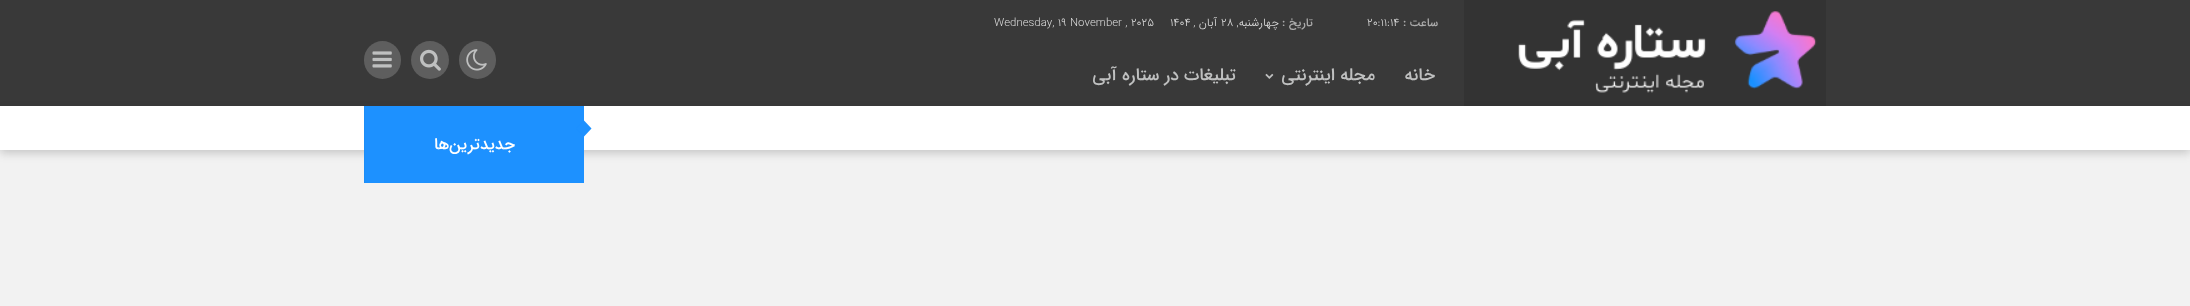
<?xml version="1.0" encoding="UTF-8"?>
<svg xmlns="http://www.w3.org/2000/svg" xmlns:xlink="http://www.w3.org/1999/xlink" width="2190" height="306">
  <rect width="100%" height="100%" fill="#f2f2f2" />
  <rect y="1" width="2190" height="150" fill="#000000" fill-opacity="0.1" filter="blur(5px)" />
  <rect width="2190" height="106" fill="#393939" />
  <rect x="1464" width="362" height="106" fill="#333333" />
  <image x="1518" y="11" width="299" height="82" xlink:href="image1.png" />
  <image x="1265" y="73" width="9" height="6" xlink:href="image2.png" />
  <rect x="459" y="41" width="37" height="38" rx="18.5" fill="#5e5e5e" />
  <image x="466" y="49" width="21" height="22" xlink:href="image3.png" />
  <circle cx="430" cy="60" r="19" fill="#5e5e5e" />
  <image x="420" y="49" width="21" height="22" xlink:href="image4.png" />
  <rect x="364" y="41" width="37" height="38" rx="18.5" fill="#5e5e5e" />
  <image x="372" y="51" width="20" height="17" xlink:href="image5.png" />
  <rect y="110" width="2190" height="44" fill="#000000" fill-opacity="0.1" filter="blur(5px)" />
  <rect y="106" width="2190" height="44" fill="#ffffff" />
  <rect x="365" y="106" width="219" height="77" fill="#1d91ff" />
  <rect x="364" y="106" width="1" height="77" fill="#1c8df7" />
  <path d="M 584 120.5 l 7.5 8 l -7.5 8 l -8 -8 z" fill="#1d91ff" />
  <text x="1438" y="26" style="font-family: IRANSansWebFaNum; font-size: 11.4px; font-weight: 500; direction: rtl; fill: #ababab">ساعت :</text>
  <text x="1367" y="26" style="font-family: IRANSansWebFaNum; font-size: 11.4px; font-weight: 300; fill: #dddddd">20:11:14</text>
  <text x="1313" y="26" style="font-family: IRANSansWebFaNum; font-size: 11.4px; font-weight: 500; direction: rtl; fill: #ababab">تاریخ :</text>
  <text x="1279" y="26" style="font-family: IRANSansWebFaNum; font-size: 11.4px; font-weight: 300; direction: rtl; fill: #dddddd">چهارشنبه,</text>
  <text x="1221" y="26" style="font-family: IRANSansWebFaNum; font-size: 11.4px; font-weight: 300; fill: #dddddd">۲۸</text>
  <text x="1217" y="26" style="font-family: IRANSansWebFaNum; font-size: 11.4px; font-weight: 300; direction: rtl; fill: #dddddd">آبان ,</text>
  <text x="1170" y="26" style="font-family: IRANSansWebFaNum; font-size: 11.4px; font-weight: 300; fill: #dddddd">۱۴۰۴</text>
  <text x="994" y="26" style="font-family: IRANSansWebFaNum; font-size: 11.4px; font-weight: 300; fill: #dddddd">Wednesday, 19 November , 2025</text>
  <text x="1435" y="80" style="font-family: IRANSansWebFaNum; font-size: 17.5px; font-weight: 500; direction: rtl; fill: #bfc0c0">خانه</text>
  <text x="1375" y="80" style="font-family: IRANSansWebFaNum; font-size: 17.5px; font-weight: 500; direction: rtl; fill: #bfc0c0">مجله اینترنتی</text>
  <text x="1236" y="80" style="font-family: IRANSansWebFaNum; font-size: 17.5px; font-weight: 500; direction: rtl; fill: #bfc0c0">تبلیغات در ستاره آبی</text>
  <text x="515" y="149" style="font-family: IRANSansWebFaNum; font-size: 16.25px; font-weight: 500; direction: rtl; fill: #ffffff">جدیدترین‌ها</text>
</svg>
